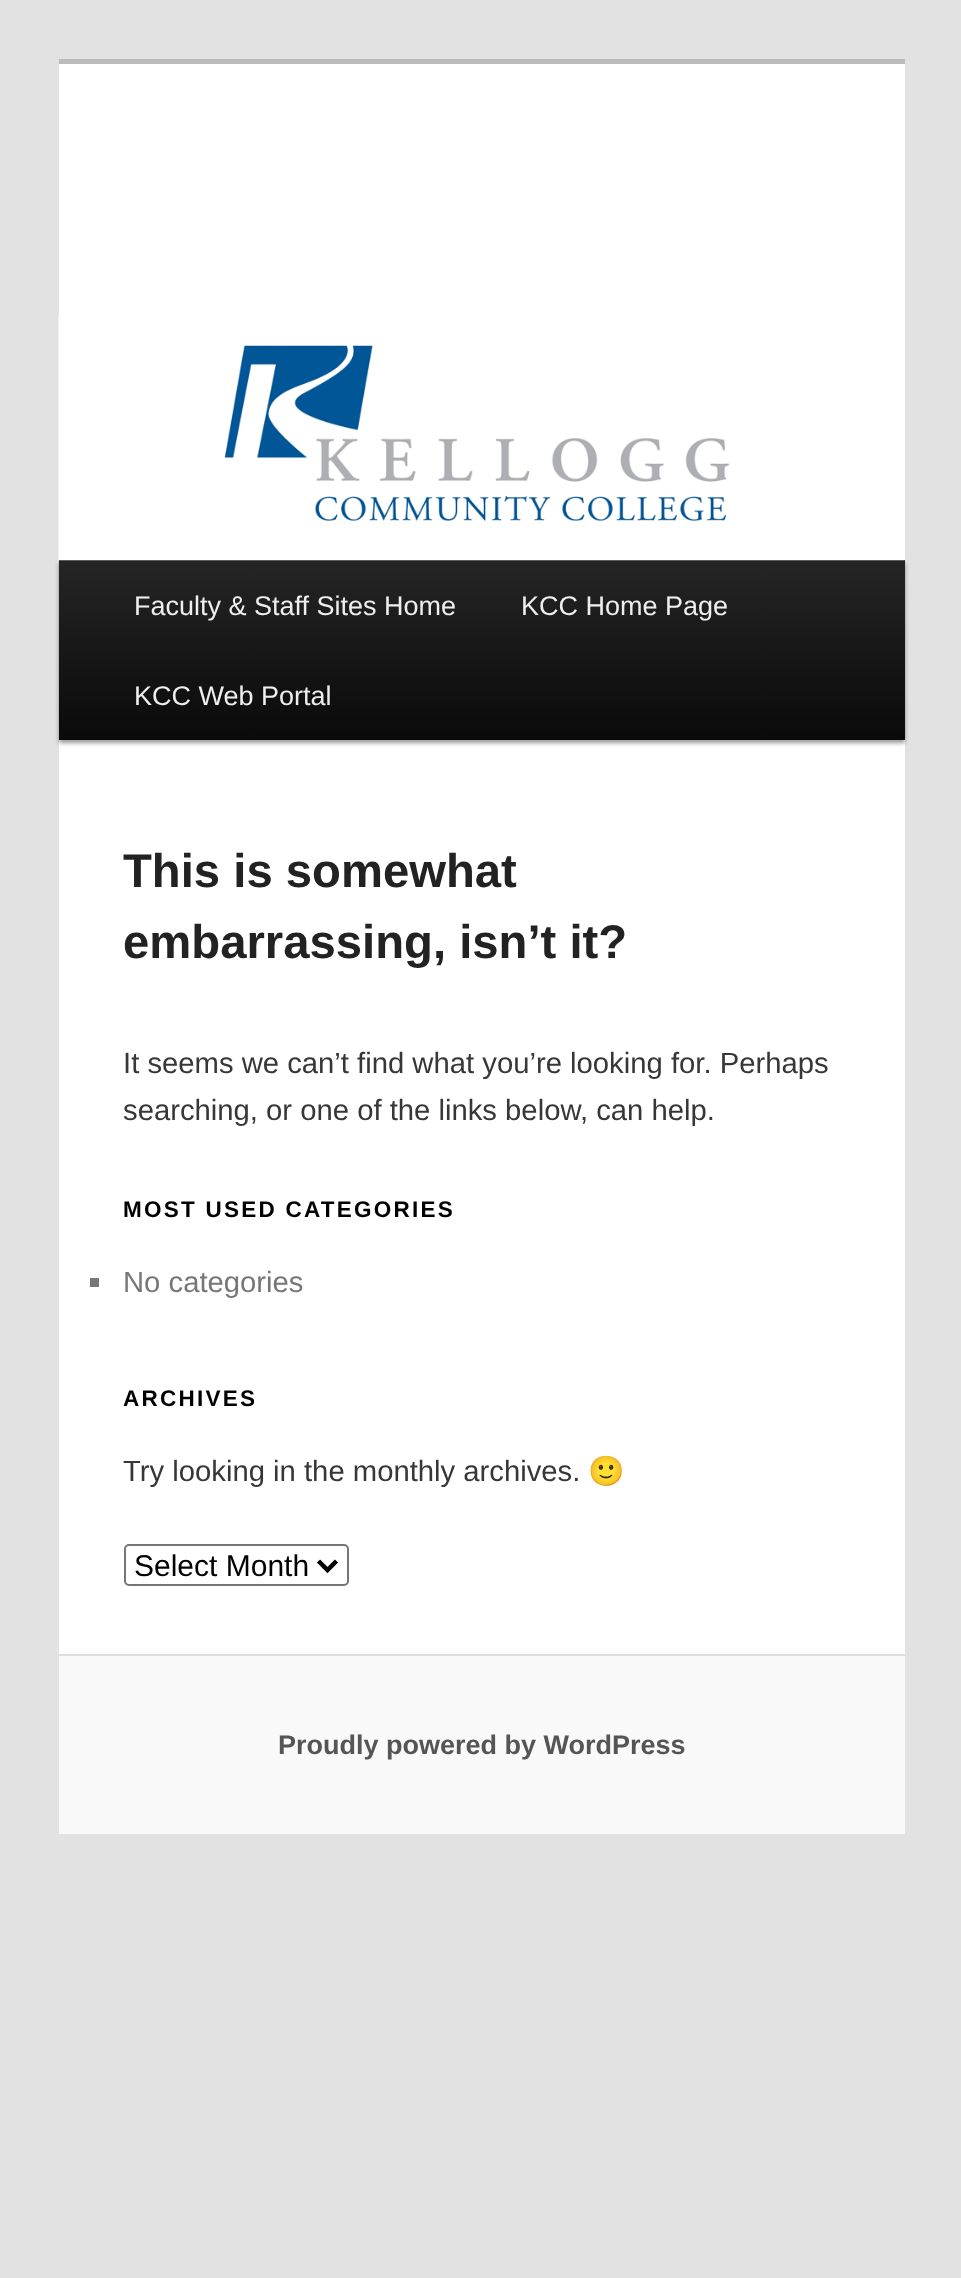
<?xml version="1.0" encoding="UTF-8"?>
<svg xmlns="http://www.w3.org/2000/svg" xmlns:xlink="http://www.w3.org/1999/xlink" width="961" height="2278">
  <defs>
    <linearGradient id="g1" gradientUnits="userSpaceOnUse" x1="482" y1="560" x2="482" y2="740"><stop offset="0" stop-color="#252525" /><stop offset="1" stop-color="#0a0a0a" /></linearGradient>
  </defs>
  <rect width="100%" height="100%" fill="#e2e2e2" />
  <rect x="59" y="64" width="846" height="1590" fill="#ffffff" />
  <rect x="59" y="59" width="846" height="5" fill="#bbbbbb" />
  <rect x="59" y="563" width="846" height="180" fill="#000000" fill-opacity="0.4" filter="blur(2px)" />
  <rect x="59" y="560" width="846" height="180" fill="url(#g1)" />
  <image x="58" y="317" width="847" height="244" xlink:href="image1.png" />
  <rect x="90" y="1278" width="9" height="9" fill="#777777" />
  <rect x="125" y="1545" width="223" height="40" rx="4" fill="none" stroke="#767676" stroke-width="2" />
  <path d="M 318.5 1561 l 9 9 l 9 -9" fill="none" stroke="#000000" stroke-width="4.5" />
  <rect x="59" y="1656" width="846" height="178" fill="#f9f9f9" />
  <rect x="59" y="1654" width="846" height="2" fill="#dddddd" />
  <text x="134" y="615" style="font-family: Liberation Sans; font-size: 27px; fill: #eeeeee">Faculty &amp; Staff Sites Home</text>
  <text x="521" y="615" style="font-family: Liberation Sans; font-size: 27px; fill: #eeeeee">KCC Home Page</text>
  <text x="134" y="705" style="font-family: Liberation Sans; font-size: 27px; fill: #eeeeee">KCC Web Portal</text>
  <text x="123" y="887" style="font-family: Liberation Sans; font-size: 47.25px; font-weight: bold; fill: #222222">This is somewhat</text>
  <text x="123" y="958" style="font-family: Liberation Sans; font-size: 47.25px; font-weight: bold; fill: #222222">embarrassing, isn’t it?</text>
  <text x="123" y="1073" style="font-family: Liberation Sans; font-size: 29.25px; fill: #373737">It seems we can’t find what you’re looking for. Perhaps</text>
  <text x="123" y="1120" style="font-family: Liberation Sans; font-size: 29.25px; fill: #373737">searching, or one of the links below, can help.</text>
  <text x="123" y="1217" style="font-family: Liberation Sans; font-size: 22.5px; font-weight: bold; letter-spacing: 2.25px; fill: #000000">MOST USED CATEGORIES</text>
  <text x="123" y="1292" style="font-family: Liberation Sans; font-size: 29.25px; fill: #777777">No categories</text>
  <text x="123" y="1406" style="font-family: Liberation Sans; font-size: 22.5px; font-weight: bold; letter-spacing: 2.25px; fill: #000000">ARCHIVES</text>
  <text x="123" y="1481" style="font-family: Liberation Sans; font-size: 29.25px; fill: #373737">Try looking in the monthly archives.</text>
  <text x="588" y="1481" style="font-family: Noto Color Emoji; font-size: 29.25px; fill: #373737">🙂</text>
  <text x="134" y="1576" style="font-family: Liberation Sans; font-size: 30px; fill: #000000">Select Month</text>
  <text x="278" y="1754" style="font-family: Liberation Sans; font-size: 27px; font-weight: bold; fill: #555555">Proudly powered by WordPress</text>
</svg>
